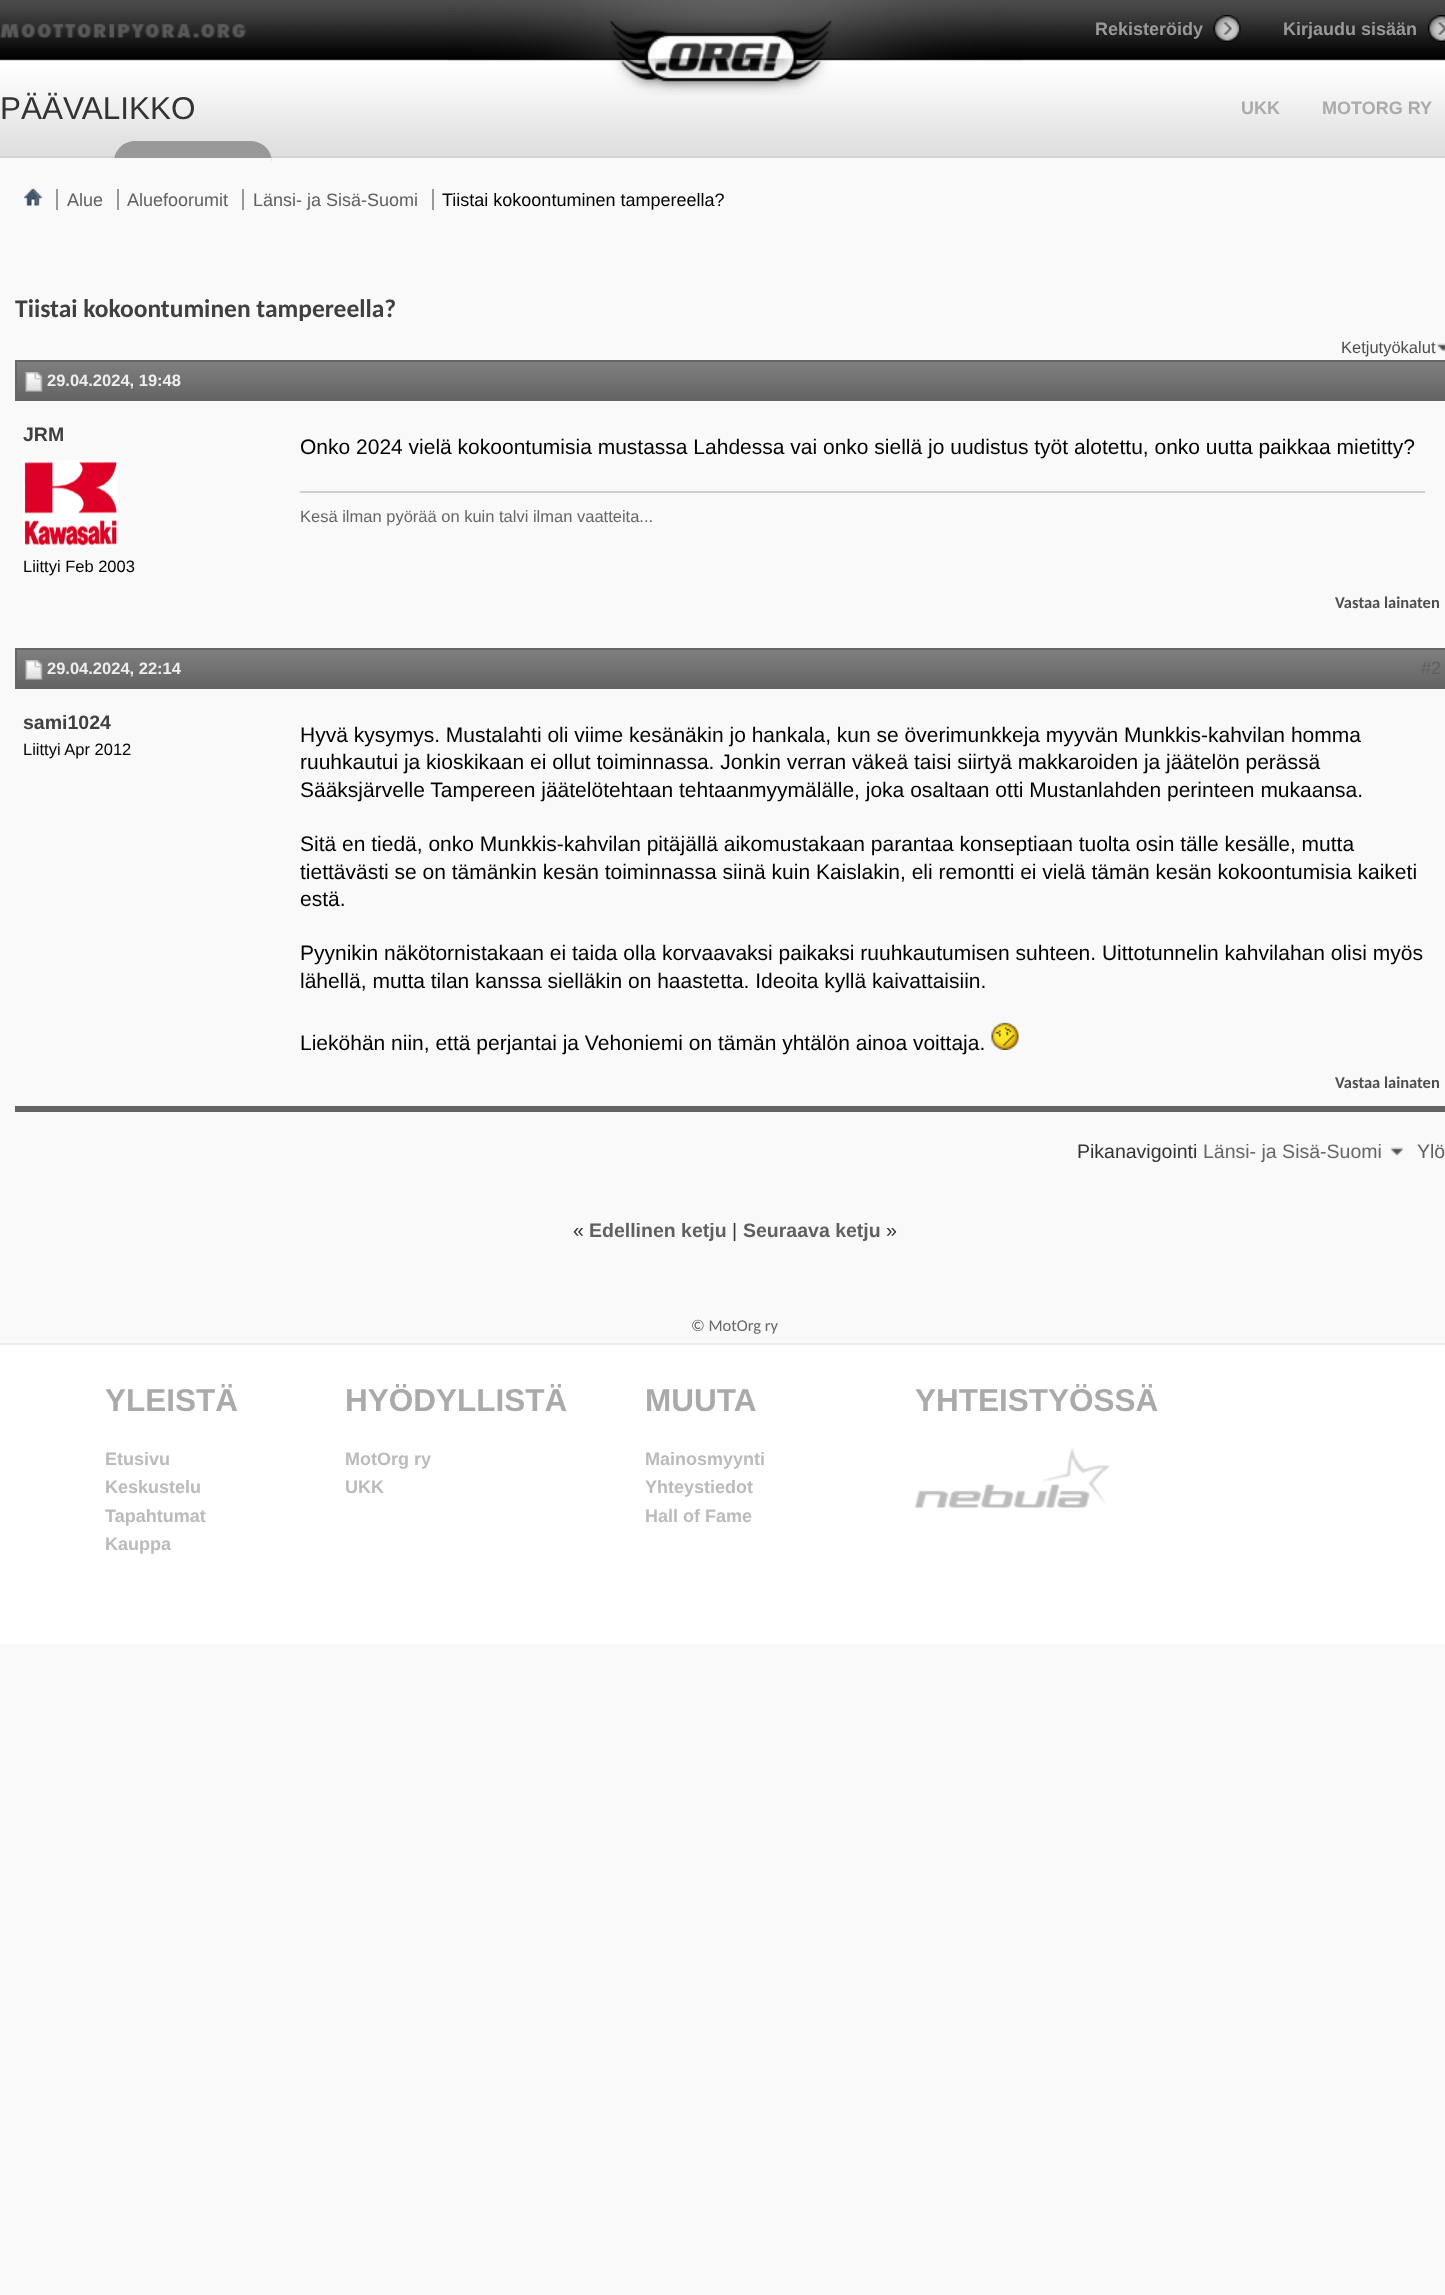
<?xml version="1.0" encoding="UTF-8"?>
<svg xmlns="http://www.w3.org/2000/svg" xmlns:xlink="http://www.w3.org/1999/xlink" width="1445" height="2295">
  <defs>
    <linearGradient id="g1" gradientUnits="userSpaceOnUse" x1="737" y1="361" x2="737" y2="399"><stop offset="0" stop-color="#808080" /><stop offset="1" stop-color="#646464" /></linearGradient>
    <linearGradient id="g2" gradientUnits="userSpaceOnUse" x1="737" y1="649" x2="737" y2="687"><stop offset="0" stop-color="#808080" /><stop offset="1" stop-color="#646464" /></linearGradient>
  </defs>
  <rect width="100%" height="100%" fill="#f9f9f9" />
  <rect y="156" width="1445" height="2" fill="#d4d4d4" />
  <image x="0" y="0" width="1445" height="156" xlink:href="image1.png" />
  <image x="448" y="0" width="575" height="61" xlink:href="image2.png" />
  <image x="0" y="23" width="247" height="15" xlink:href="image3.png" />
  <image x="610" y="20" width="222" height="75" xlink:href="image4.png" />
  <image x="1213" y="15" width="28" height="27" xlink:href="image5.png" />
  <image x="1428" y="15" width="17" height="27" xlink:href="image6.png" />
  <path d="M 135 141 h 116 c 11.5 0 21 9.5 21 21 v -4 h -158 v 4 c 0 -11.5 9.5 -21 21 -21 z" fill="#999999" />
  <rect x="114" y="158" width="158" height="1" fill="#f9f9f9" />
  <image x="24" y="188" width="18" height="18" xlink:href="image7.png" />
  <rect x="56" y="189" width="2" height="21" fill="#999999" />
  <rect x="117" y="189" width="2" height="21" fill="#999999" />
  <rect x="242" y="189" width="2" height="21" fill="#999999" />
  <rect x="432" y="189" width="2" height="21" fill="#999999" />
  <image x="1437" y="343" width="8" height="9" xlink:href="image8.png" />
  <rect x="15" y="1106" width="1430" height="6" fill="#646464" />
  <rect x="17" y="362" width="1428" height="37" fill="url(#g1)" />
  <rect x="16" y="361" width="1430" height="39" fill="none" stroke="#666666" stroke-width="2" />
  <image x="25" y="372" width="18" height="20" xlink:href="image9.png" />
  <image x="23" y="460" width="95" height="87" xlink:href="image10.png" />
  <rect x="300" y="491" width="1125" height="2" fill="#cfcfcf" />
  <rect x="17" y="650" width="1428" height="37" fill="url(#g2)" />
  <rect x="16" y="649" width="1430" height="39" fill="none" stroke="#666666" stroke-width="2" />
  <image x="25" y="660" width="18" height="20" xlink:href="image9.png" />
  <image x="991" y="1022" width="28" height="28" xlink:href="image11.png" />
  <image x="1390" y="1147" width="14" height="9" xlink:href="image12.png" />
  <rect y="1345" width="1445" height="299" fill="#ffffff" />
  <rect y="1343" width="1445" height="2" fill="#eeeeee" />
  <image x="915" y="1448" width="195" height="60" xlink:href="image13.png" />
  <text x="1095" y="35" style="font-family: Liberation Sans; font-size: 18px; font-weight: bold; fill: #999999">Rekisteröidy</text>
  <text x="1283" y="35" style="font-family: Liberation Sans; font-size: 18px; font-weight: bold; fill: #999999">Kirjaudu sisään</text>
  <text x="0" y="119" style="font-family: Liberation Sans; font-size: 31.5px; fill: #333333">PÄÄVALIKKO</text>
  <text x="1241" y="114" style="font-family: Liberation Sans; font-size: 18px; font-weight: bold; fill: #aaaaaa">UKK</text>
  <text x="1322" y="114" style="font-family: Liberation Sans; font-size: 18px; font-weight: bold; fill: #aaaaaa">MOTORG RY</text>
  <text x="67" y="206" style="font-family: Liberation Sans; font-size: 18px; fill: #606060">Alue</text>
  <text x="127" y="206" style="font-family: Liberation Sans; font-size: 18px; fill: #606060">Aluefoorumit</text>
  <text x="253" y="206" style="font-family: Liberation Sans; font-size: 18px; fill: #606060">Länsi- ja Sisä-Suomi</text>
  <text x="442" y="206" style="font-family: Liberation Sans; font-size: 18px; fill: #000000">Tiistai kokoontuminen tampereella?</text>
  <text x="15" y="317" style="font-family: Carlito; font-size: 25.5px; font-weight: bold; fill: #404040">Tiistai kokoontuminen tampereella?</text>
  <text x="1341" y="353" style="font-family: Liberation Sans; font-size: 16.5px; fill: #4e4e4e">Ketjutyökalut</text>
  <text x="47" y="386" style="font-family: Liberation Sans; font-size: 16.5px; font-weight: bold; fill: #eeeeee">29.04.2024, 19:48</text>
  <text x="23" y="441" style="font-family: Liberation Sans; font-size: 19.5px; font-weight: bold; fill: #404040">JRM</text>
  <text x="23" y="572" style="font-family: Liberation Sans; font-size: 16.5px; fill: #000000">Liittyi Feb 2003</text>
  <text x="300" y="454" style="font-family: Liberation Sans; font-size: 21px; fill: #000000">Onko 2024 vielä kokoontumisia mustassa Lahdessa vai onko siellä jo uudistus työt alotettu, onko uutta paikkaa mietitty?</text>
  <text x="300" y="522" style="font-family: Liberation Sans; font-size: 16.5px; fill: #666666">Kesä ilman pyörää on kuin talvi ilman vaatteita...</text>
  <text x="1335" y="608" style="font-family: Carlito; font-size: 16.5px; font-weight: bold; fill: #4e4e4e">Vastaa lainaten</text>
  <text x="47" y="674" style="font-family: Liberation Sans; font-size: 16.5px; font-weight: bold; fill: #eeeeee">29.04.2024, 22:14</text>
  <text x="1421" y="674" style="font-family: Liberation Sans; font-size: 18px; fill: #606060">#2</text>
  <text x="23" y="729" style="font-family: Liberation Sans; font-size: 19.5px; font-weight: bold; fill: #404040">sami1024</text>
  <text x="23" y="755" style="font-family: Liberation Sans; font-size: 16.5px; fill: #000000">Liittyi Apr 2012</text>
  <text x="300" y="742" style="font-family: Liberation Sans; font-size: 21px; fill: #000000">Hyvä kysymys. Mustalahti oli viime kesänäkin jo hankala, kun se överimunkkeja myyvän Munkkis-kahvilan homma</text>
  <text x="300" y="769" style="font-family: Liberation Sans; font-size: 21px; fill: #000000">ruuhkautui ja kioskikaan ei ollut toiminnassa. Jonkin verran väkeä taisi siirtyä makkaroiden ja jäätelön perässä</text>
  <text x="300" y="797" style="font-family: Liberation Sans; font-size: 21px; fill: #000000">Sääksjärvelle Tampereen jäätelötehtaan tehtaanmyymälälle, joka osaltaan otti Mustanlahden perinteen mukaansa.</text>
  <text x="300" y="851" style="font-family: Liberation Sans; font-size: 21px; fill: #000000">Sitä en tiedä, onko Munkkis-kahvilan pitäjällä aikomustakaan parantaa konseptiaan tuolta osin tälle kesälle, mutta</text>
  <text x="300" y="879" style="font-family: Liberation Sans; font-size: 21px; fill: #000000">tiettävästi se on tämänkin kesän toiminnassa siinä kuin Kaislakin, eli remontti ei vielä tämän kesän kokoontumisia kaiketi</text>
  <text x="300" y="906" style="font-family: Liberation Sans; font-size: 21px; fill: #000000">estä.</text>
  <text x="300" y="960" style="font-family: Liberation Sans; font-size: 21px; fill: #000000">Pyynikin näkötornistakaan ei taida olla korvaavaksi paikaksi ruuhkautumisen suhteen. Uittotunnelin kahvilahan olisi myös</text>
  <text x="300" y="988" style="font-family: Liberation Sans; font-size: 21px; fill: #000000">lähellä, mutta tilan kanssa sielläkin on haastetta. Ideoita kyllä kaivattaisiin.</text>
  <text x="300" y="1050" style="font-family: Liberation Sans; font-size: 21px; fill: #000000">Lieköhän niin, että perjantai ja Vehoniemi on tämän yhtälön ainoa voittaja.</text>
  <text x="1335" y="1088" style="font-family: Carlito; font-size: 16.5px; font-weight: bold; fill: #4e4e4e">Vastaa lainaten</text>
  <text x="1077" y="1158" style="font-family: Liberation Sans; font-size: 19.5px; fill: #333333">Pikanavigointi</text>
  <text x="1203" y="1158" style="font-family: Liberation Sans; font-size: 19.5px; fill: #666666">Länsi- ja Sisä-Suomi</text>
  <text x="1417" y="1158" style="font-family: Liberation Sans; font-size: 19.5px; fill: #606060">Ylö</text>
  <text x="573" y="1237" style="font-family: Liberation Sans; font-size: 19.5px; fill: #333333">«</text>
  <text x="589" y="1237" style="font-family: Liberation Sans; font-size: 19.5px; font-weight: bold; fill: #606060">Edellinen ketju</text>
  <text x="732" y="1237" style="font-family: Liberation Sans; font-size: 19.5px; fill: #333333">|</text>
  <text x="743" y="1237" style="font-family: Liberation Sans; font-size: 19.5px; font-weight: bold; fill: #606060">Seuraava ketju</text>
  <text x="886" y="1237" style="font-family: Liberation Sans; font-size: 19.5px; fill: #333333">»</text>
  <text x="691" y="1331" style="font-family: Carlito; font-size: 16.5px; fill: #666666">© MotOrg ry</text>
  <text x="105" y="1411" style="font-family: Liberation Sans; font-size: 31.5px; font-weight: bold; fill: #aaaaaa">YLEISTÄ</text>
  <text x="105" y="1465" style="font-family: Liberation Sans; font-size: 18px; font-weight: bold; fill: #bbbbbb">Etusivu</text>
  <text x="105" y="1493" style="font-family: Liberation Sans; font-size: 18px; font-weight: bold; fill: #bbbbbb">Keskustelu</text>
  <text x="105" y="1522" style="font-family: Liberation Sans; font-size: 18px; font-weight: bold; fill: #bbbbbb">Tapahtumat</text>
  <text x="105" y="1550" style="font-family: Liberation Sans; font-size: 18px; font-weight: bold; fill: #bbbbbb">Kauppa</text>
  <text x="345" y="1411" style="font-family: Liberation Sans; font-size: 31.5px; font-weight: bold; fill: #aaaaaa">HYÖDYLLISTÄ</text>
  <text x="345" y="1465" style="font-family: Liberation Sans; font-size: 18px; font-weight: bold; fill: #bbbbbb">MotOrg ry</text>
  <text x="345" y="1493" style="font-family: Liberation Sans; font-size: 18px; font-weight: bold; fill: #bbbbbb">UKK</text>
  <text x="645" y="1411" style="font-family: Liberation Sans; font-size: 31.5px; font-weight: bold; fill: #aaaaaa">MUUTA</text>
  <text x="645" y="1465" style="font-family: Liberation Sans; font-size: 18px; font-weight: bold; fill: #bbbbbb">Mainosmyynti</text>
  <text x="645" y="1493" style="font-family: Liberation Sans; font-size: 18px; font-weight: bold; fill: #bbbbbb">Yhteystiedot</text>
  <text x="645" y="1522" style="font-family: Liberation Sans; font-size: 18px; font-weight: bold; fill: #bbbbbb">Hall of Fame</text>
  <text x="915" y="1411" style="font-family: Liberation Sans; font-size: 31.5px; font-weight: bold; fill: #aaaaaa">YHTEISTYÖSSÄ</text>
</svg>
